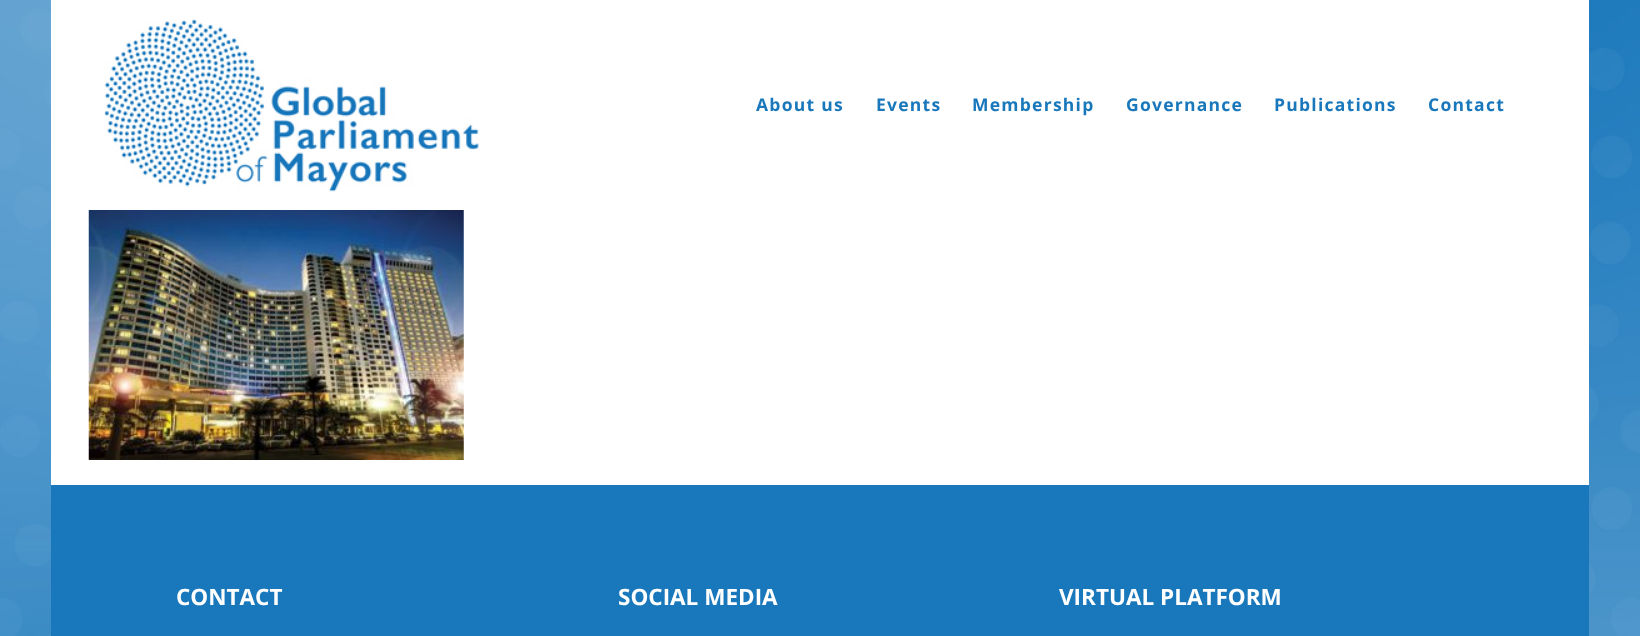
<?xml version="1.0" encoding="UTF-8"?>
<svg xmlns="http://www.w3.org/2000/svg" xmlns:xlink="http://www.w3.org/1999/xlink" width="1640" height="636">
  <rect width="100%" height="100%" fill="#ffffff" />
  <image x="0" y="0" width="1640" height="636" xlink:href="image1.png" />
  <rect x="51" width="1538" height="485" fill="#ffffff" />
  <image x="88" y="210" width="376" height="250" xlink:href="image2.png" />
  <image x="104" y="19" width="375" height="173" xlink:href="image3.png" />
  <rect x="51" y="485" width="1538" height="151" fill="#1977bb" />
  <text x="756" y="111" style="font-family: Open Sans; font-size: 17.5px; font-weight: bold; letter-spacing: 1.25px; fill: #1977bb">About us</text>
  <text x="876" y="111" style="font-family: Open Sans; font-size: 17.5px; font-weight: bold; letter-spacing: 1.25px; fill: #1977bb">Events</text>
  <text x="972" y="111" style="font-family: Open Sans; font-size: 17.5px; font-weight: bold; letter-spacing: 1.25px; fill: #1977bb">Membership</text>
  <text x="1126" y="111" style="font-family: Open Sans; font-size: 17.5px; font-weight: bold; letter-spacing: 1.25px; fill: #1977bb">Governance</text>
  <text x="1274" y="111" style="font-family: Open Sans; font-size: 17.5px; font-weight: bold; letter-spacing: 1.25px; fill: #1977bb">Publications</text>
  <text x="1428" y="111" style="font-family: Open Sans; font-size: 17.5px; font-weight: bold; letter-spacing: 1.25px; fill: #1977bb">Contact</text>
  <text x="176" y="605" style="font-family: Open Sans; font-size: 22.5px; font-weight: bold; fill: #ffffff">CONTACT</text>
  <text x="618" y="605" style="font-family: Open Sans; font-size: 22.5px; font-weight: bold; fill: #ffffff">SOCIAL MEDIA</text>
  <text x="1059" y="605" style="font-family: Open Sans; font-size: 22.5px; font-weight: bold; fill: #ffffff">VIRTUAL PLATFORM</text>
</svg>
